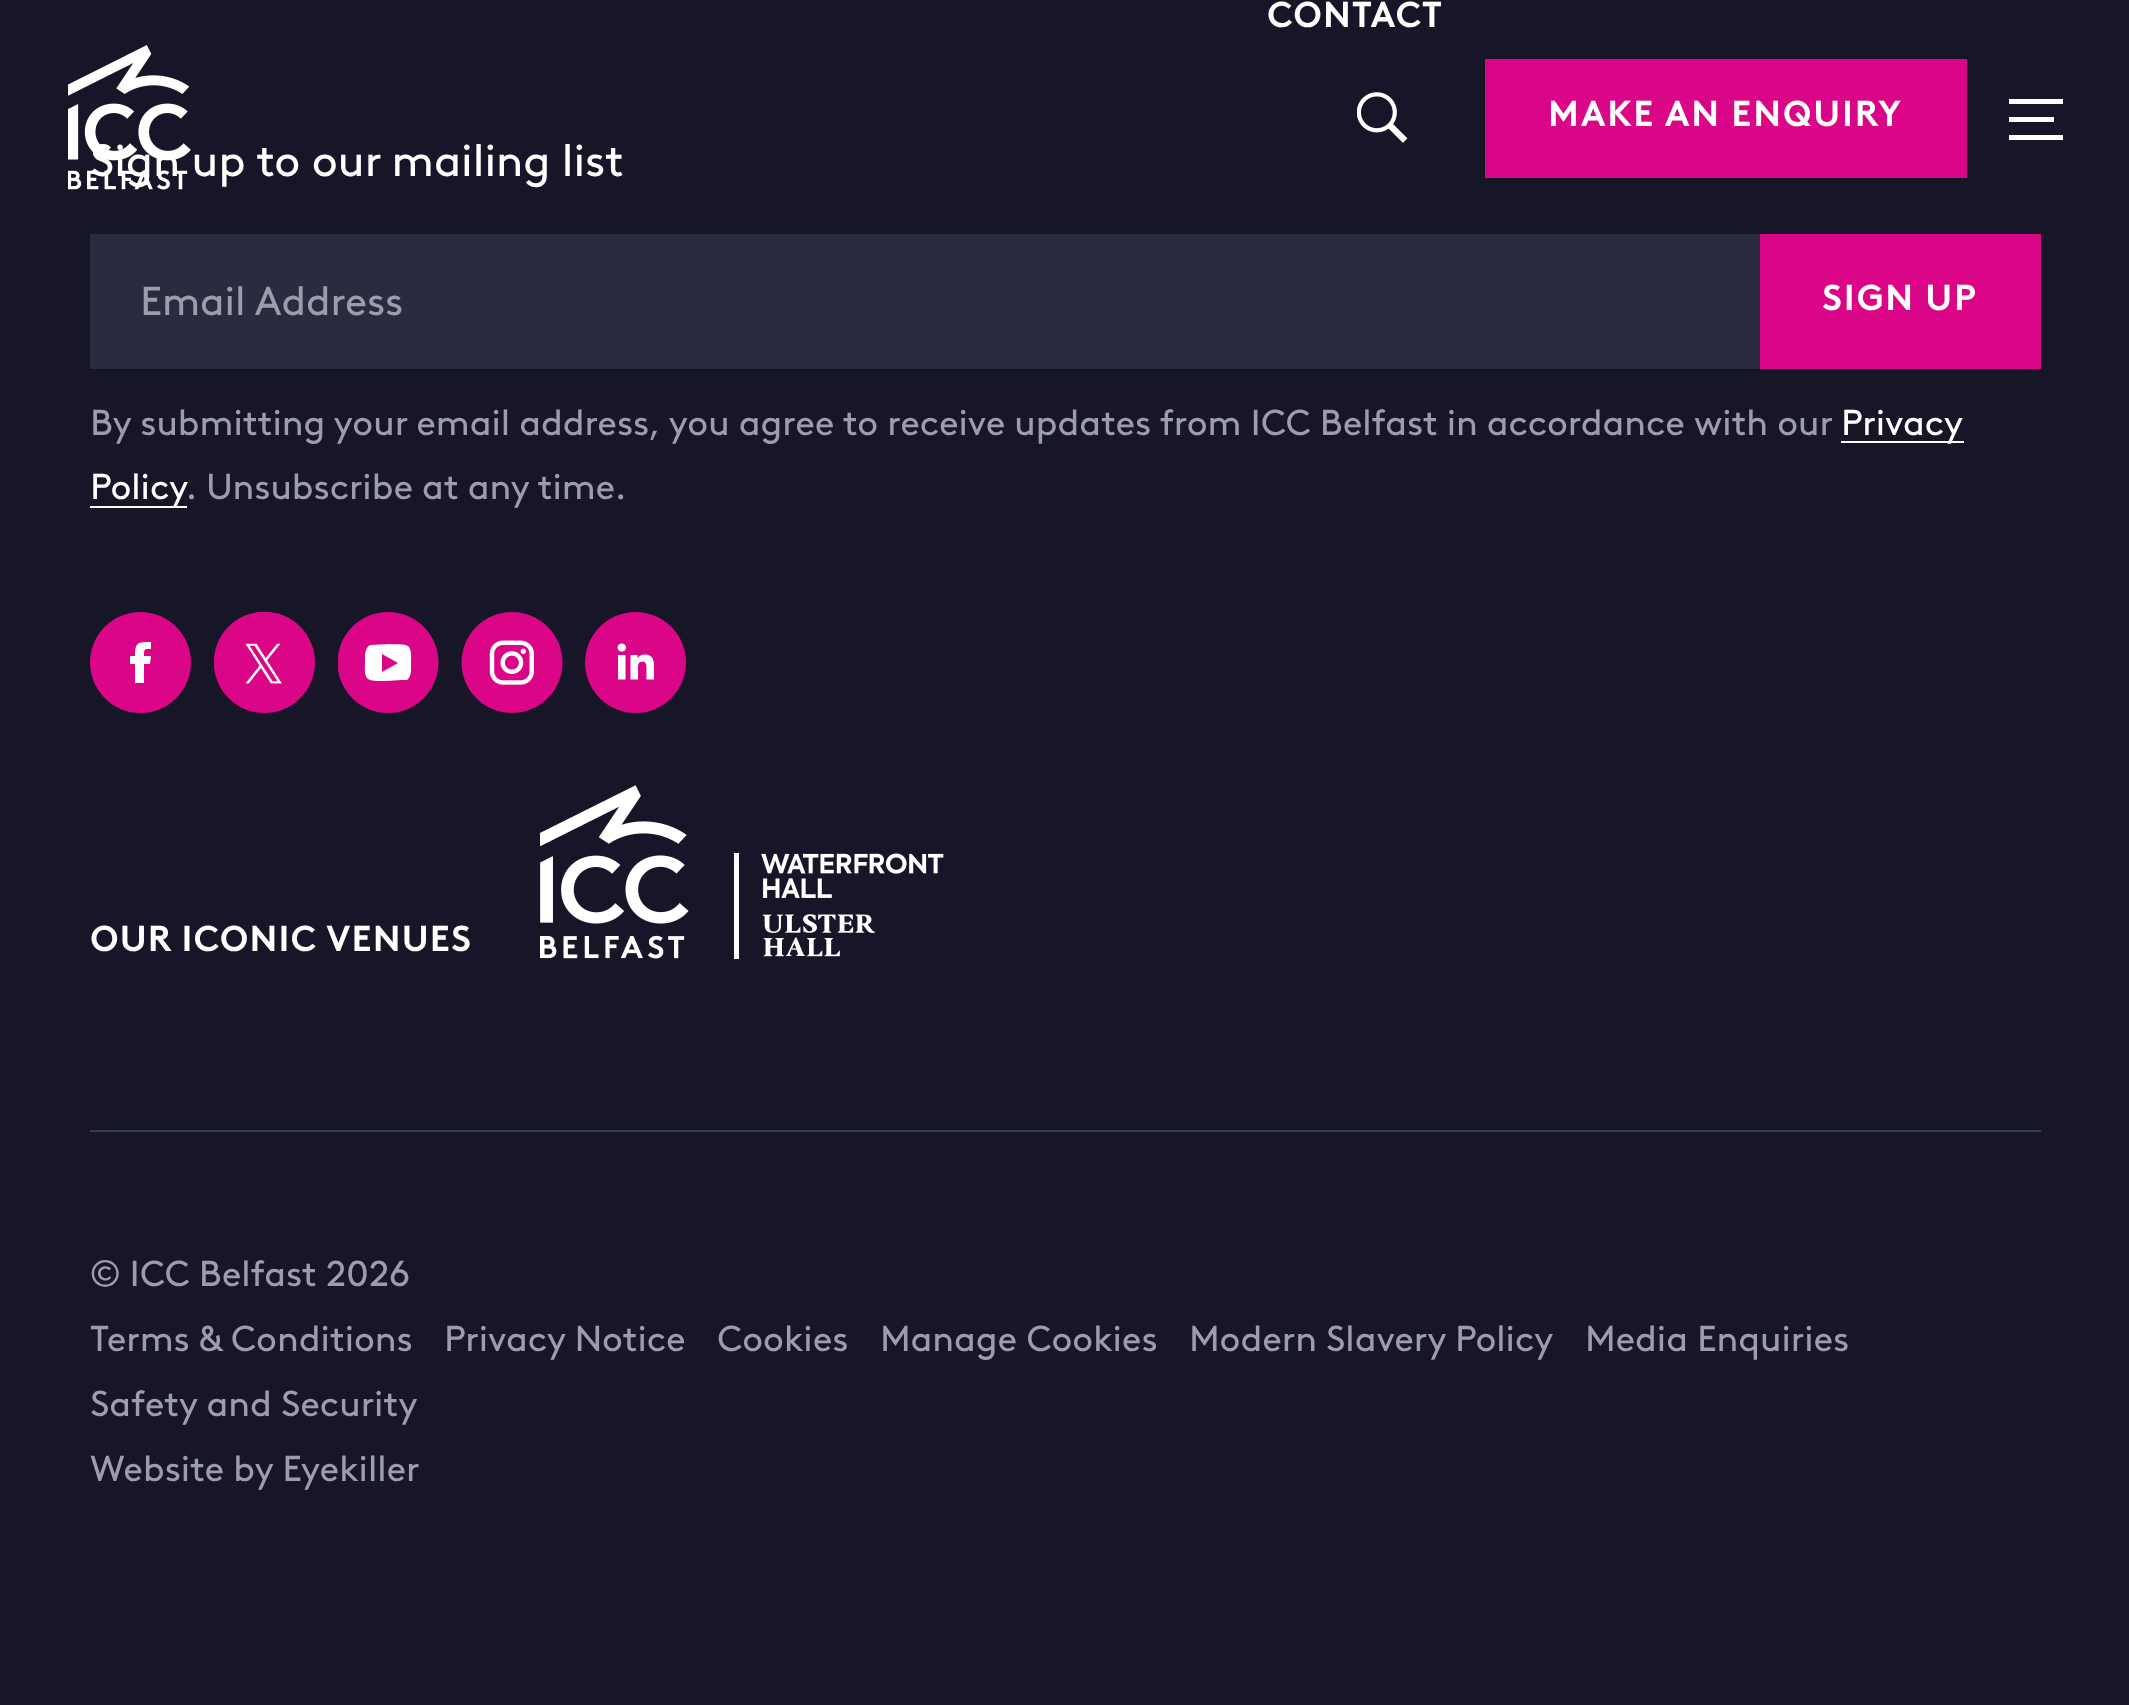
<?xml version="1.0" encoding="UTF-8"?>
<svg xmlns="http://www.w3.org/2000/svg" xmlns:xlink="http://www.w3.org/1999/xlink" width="2129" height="1705">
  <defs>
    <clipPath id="clip1"><rect x="338" y="612" width="101" height="101" /></clipPath>
  </defs>
  <rect width="100%" height="100%" fill="#161628" />
  <rect x="90" y="234" width="1670" height="135" fill="#2b2b3f" />
  <rect x="1760" y="234" width="281" height="135" fill="#da0587" />
  <rect x="1841" y="441" width="123" height="2" fill="#ffffff" />
  <rect x="90" y="506" width="97" height="2" fill="#ffffff" />
  <circle cx="140.5" cy="662.5" r="50.5" fill="#da0587" />
  <path d="M 144 683 h -9 v -19 h -5 v -8 h 5 c 0 -14 3 -14 16 -14 v 7 c -7 0 -7 0 -7 7 h 7 l -1 8 h -6 z" fill="#ffffff" fill-rule="evenodd" />
  <image x="214" y="612" width="101" height="101" xlink:href="image1.png" />
  <g clip-path="url(#clip1)">
    <circle cx="388" cy="662.5" r="50.5" fill="#da0587" />
  </g>
  <path d="M 409 647 c 3 4 2 12 2 16 c 0 4 1 14 -4 17 h -5 l -16 1 c -3 0 -16 1 -19 -3 c -3 -4 -2 -11 -2 -15 c 0 -5 -1 -15 5 -18 l 20 -1 c 3 1 16 -1 19 3 z m -27 25 v -18 l 16 9 z" fill="#ffffff" fill-rule="evenodd" />
  <image x="461" y="612" width="102" height="101" xlink:href="image2.png" />
  <circle cx="635.5" cy="662.5" r="50.5" fill="#da0587" />
  <path d="M 625.5 655 h -7.5 v 24.5 h 7.5 z m 0.5 -7.5 c 0 -5.5 -8.5 -5.5 -8.5 0 c 0 5.5 8.5 5.5 8.5 0 z m 11.5 7.5 h -7 v 24.5 h 7.5 v -12 c 0 -3 0.5 -6 4.5 -6 c 3.5 0 4 3.5 4 6 v 12 h 7.5 v -13.5 c 0 -6.5 -1.5 -11.5 -9 -11.5 c -4 0 -6.5 2 -7.5 4 z" fill="#ffffff" fill-rule="evenodd" />
  <image x="540" y="785" width="149" height="174" xlink:href="image3.png" />
  <rect x="734" y="853" width="5" height="106" fill="#ffffff" />
  <image x="761" y="853" width="183" height="45" xlink:href="image4.png" />
  <image x="762" y="914" width="113" height="43" xlink:href="image5.png" />
  <rect x="90" y="1130" width="1951" height="2" fill="#393952" />
  <image x="1357" y="92" width="51" height="51" xlink:href="image7.png" />
  <rect x="1485" y="59" width="482" height="119" fill="#da0587" />
  <rect x="2009" y="117" width="45" height="5" fill="#ffffff" />
  <rect x="2009" y="99" width="54" height="5" fill="#ffffff" />
  <rect x="2009" y="135" width="54" height="5" fill="#ffffff" />
  <text x="1267" y="27" style="font-family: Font; font-size: 36px; font-weight: bold; letter-spacing: 1.1px; fill: #ffffff">CONTACT</text>
  <text x="90" y="176" style="font-family: Font; font-size: 45px; fill: #ffffff">Sign up to our mailing list</text>
  <text x="140" y="315" style="font-family: Font; font-size: 40.5px; fill: #9c9cad">Email Address</text>
  <text x="1822" y="310" style="font-family: Font; font-size: 36px; font-weight: bold; letter-spacing: 1.75px; fill: #ffffff">SIGN UP</text>
  <text x="90" y="435" style="font-family: Font; font-size: 36px; fill: #9c9cad">By submitting your email address, you agree to receive updates from ICC Belfast in accordance with our</text>
  <text x="1841" y="435" style="font-family: Font; font-size: 36px; fill: #ffffff">Privacy</text>
  <text x="90" y="499" style="font-family: Font; font-size: 36px; fill: #ffffff">Policy</text>
  <text x="186" y="499" style="font-family: Font; font-size: 36px; fill: #9c9cad">. Unsubscribe at any time.</text>
  <text x="90" y="951" style="font-family: Font; font-size: 36px; font-weight: bold; letter-spacing: 1.1px; fill: #ffffff">OUR ICONIC VENUES</text>
  <text x="90" y="1286" style="font-family: Font; font-size: 36px; fill: #9c9cad">© ICC Belfast 2026</text>
  <text x="90" y="1351" style="font-family: Font; font-size: 36px; fill: #9c9cad">Terms &amp; Conditions</text>
  <text x="444" y="1351" style="font-family: Font; font-size: 36px; fill: #9c9cad">Privacy Notice</text>
  <text x="717" y="1351" style="font-family: Font; font-size: 36px; fill: #9c9cad">Cookies</text>
  <text x="880" y="1351" style="font-family: Font; font-size: 36px; fill: #9c9cad">Manage Cookies</text>
  <text x="1189" y="1351" style="font-family: Font; font-size: 36px; fill: #9c9cad">Modern Slavery Policy</text>
  <text x="1585" y="1351" style="font-family: Font; font-size: 36px; fill: #9c9cad">Media Enquiries</text>
  <text x="90" y="1416" style="font-family: Font; font-size: 36px; fill: #9c9cad">Safety and Security</text>
  <text x="90" y="1481" style="font-family: Font; font-size: 36px; fill: #9c9cad">Website by Eyekiller</text>
  <image x="68" y="45" width="123" height="145" xlink:href="image6.png" />
  <text x="1548" y="126" style="font-family: Font; font-size: 36px; font-weight: bold; letter-spacing: 1.75px; fill: #ffffff">MAKE AN ENQUIRY</text>
</svg>
